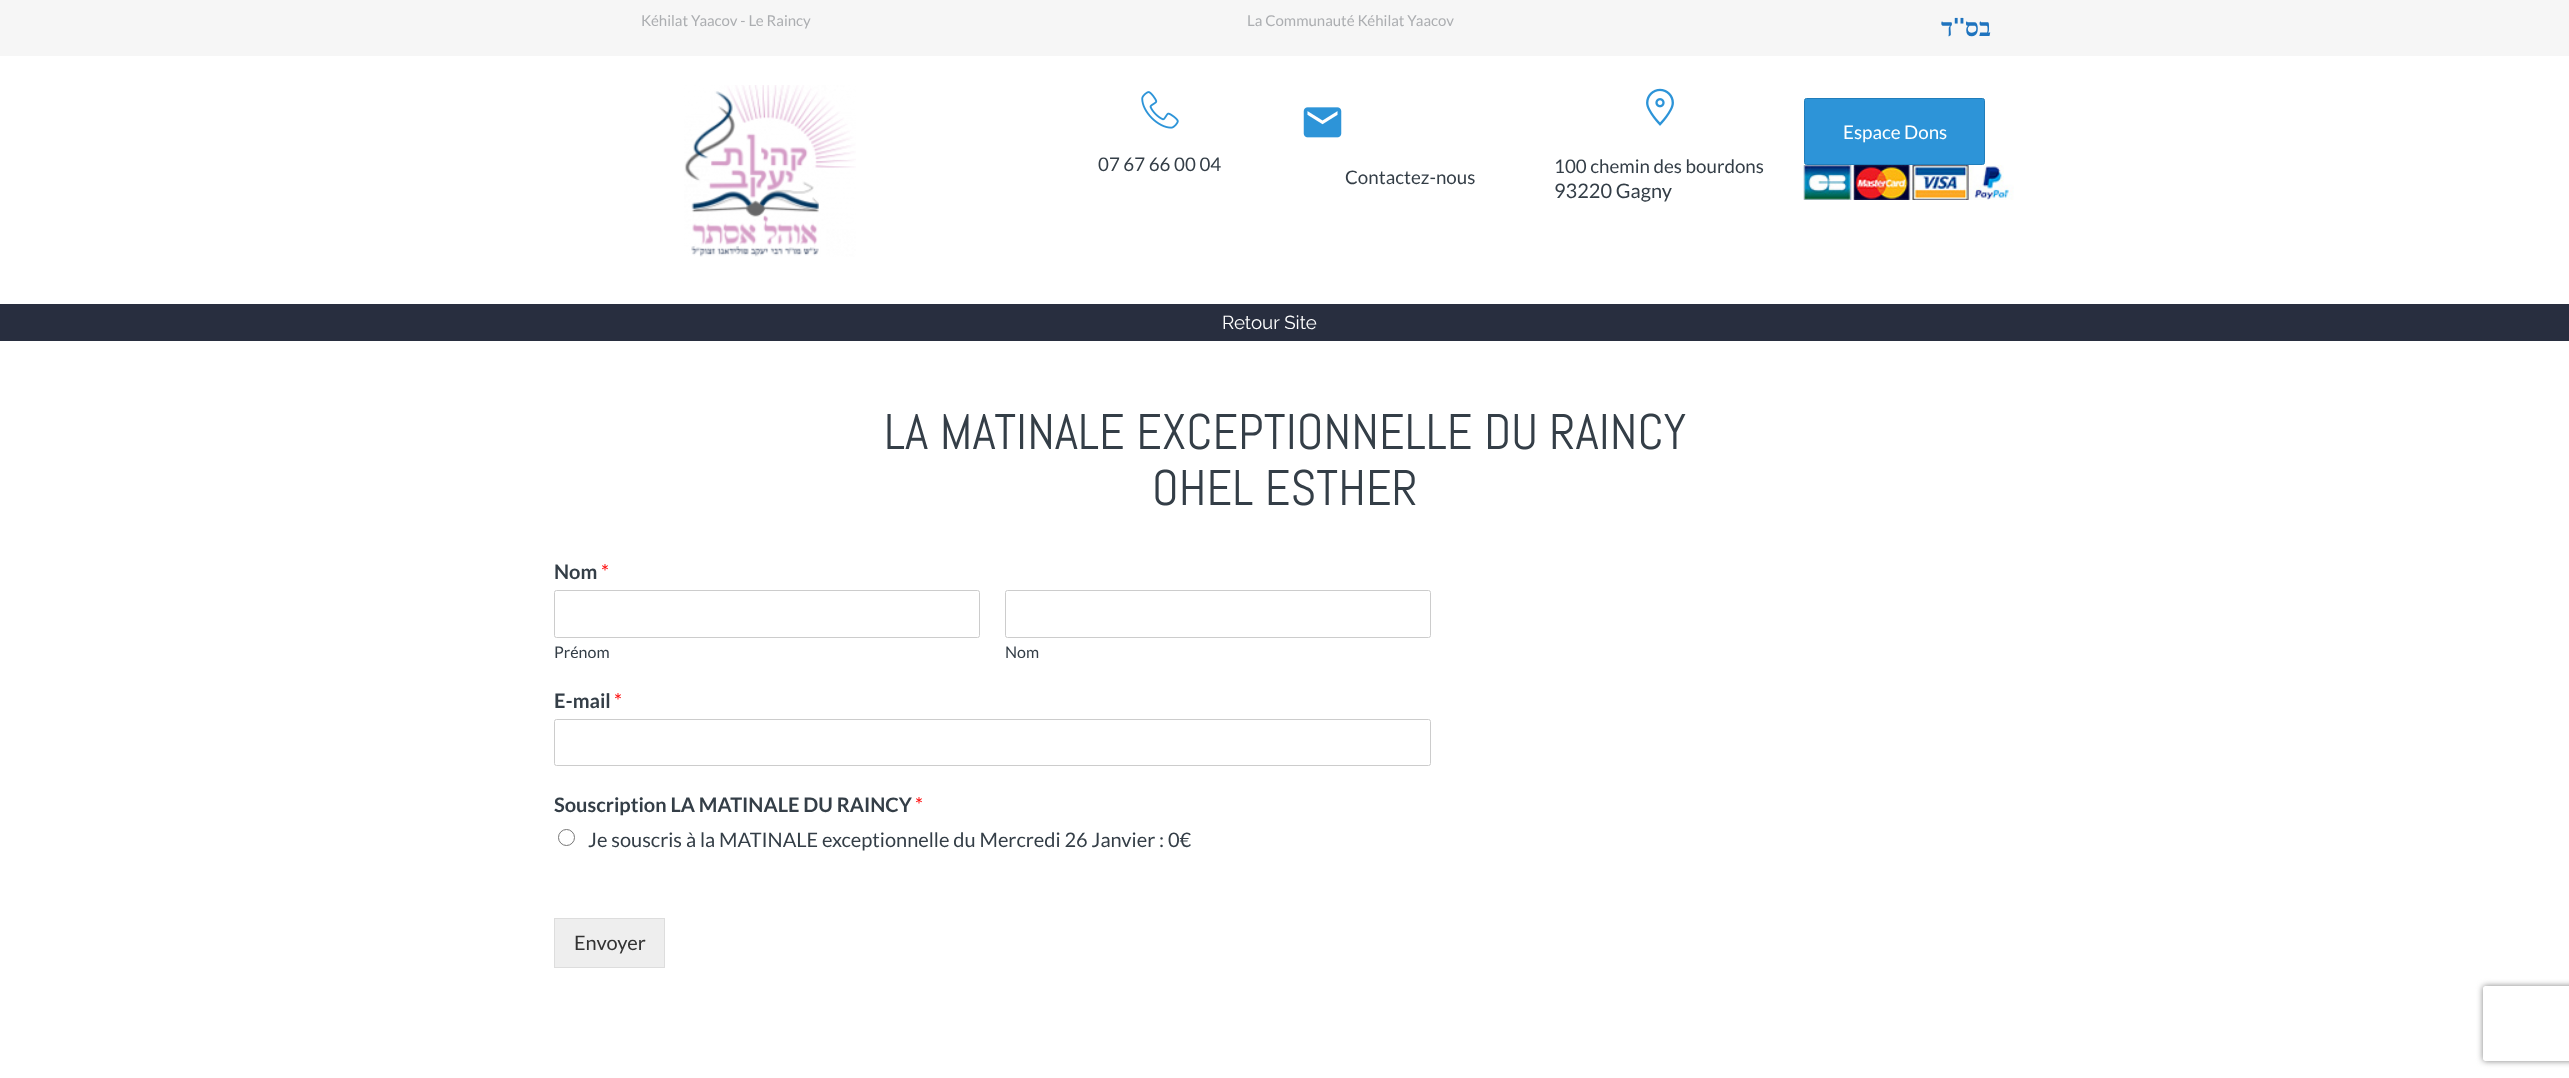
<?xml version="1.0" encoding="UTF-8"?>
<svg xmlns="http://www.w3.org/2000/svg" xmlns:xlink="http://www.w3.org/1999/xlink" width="2569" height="1078">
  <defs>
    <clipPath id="clip1"><path d="M 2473 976 h 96 v 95 h -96 z m 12.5 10 h 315 c 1.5 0 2.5 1 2.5 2.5 v 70 c 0 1.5 -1 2.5 -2.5 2.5 h -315 c -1.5 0 -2.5 -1 -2.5 -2.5 v -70 c 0 -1.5 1 -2.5 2.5 -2.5 z" clip-rule="evenodd" /></clipPath>
  </defs>
  <rect width="100%" height="100%" fill="#ffffff" />
  <rect width="2569" height="56" fill="#f6f6f6" />
  <image x="684" y="85" width="172" height="172" xlink:href="image1.png" />
  <rect x="1804.5" y="98.5" width="180" height="66" rx="2" fill="#2d94d8" stroke="#207dba" />
  <image x="1803" y="165" width="211" height="35" xlink:href="image2.png" />
  <image x="1141" y="91" width="38" height="38" xlink:href="image3.png" />
  <image x="1303" y="107" width="39" height="31" xlink:href="image4.png" />
  <image x="1646" y="88" width="28" height="38" xlink:href="image5.png" />
  <rect y="304" width="2569" height="37" fill="#282e3f" />
  <rect x="554.5" y="590.5" width="425" height="47" rx="2" fill="none" stroke="#cccccc" />
  <rect x="1005.5" y="590.5" width="425" height="47" rx="2" fill="none" stroke="#cccccc" />
  <rect x="554.5" y="719.5" width="876" height="46" rx="2" fill="none" stroke="#cccccc" />
  <circle cx="566.5" cy="837.5" r="8" fill="none" stroke="#767676" />
  <rect x="554.5" y="918.5" width="110" height="49" fill="#eeeeee" stroke="#dddddd" />
  <g clip-path="url(#clip1)">
    <rect x="2483" y="986" width="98" height="75" rx="2.5" fill="#808080" filter="blur(3px)" />
  </g>
  <text x="641" y="26" style="font-family: Lato; font-size: 15px; fill: #acaeb1">Kéhilat Yaacov - Le Raincy</text>
  <text x="1247" y="26" style="font-family: Lato; font-size: 15px; fill: #acaeb1">La Communauté Kéhilat Yaacov</text>
  <text x="1953" y="36" style="font-family: Liberation Serif; font-size: 25px; font-weight: bold; direction: rtl; fill: #1e73be">ד</text>
  <text x="1965" y="36" style="font-family: Raleway; font-size: 25px; font-weight: bold; direction: rtl; fill: #1e73be">''</text>
  <text x="1991" y="36" style="font-family: Liberation Serif; font-size: 25px; font-weight: bold; direction: rtl; fill: #1e73be">בס</text>
  <text x="1843" y="139" style="font-family: Lato; font-size: 18.75px; fill: #ffffff">Espace Dons</text>
  <text x="1098" y="171" style="font-family: Lato; font-size: 18.75px; fill: #343e47">07 67 66 00 04</text>
  <text x="1345" y="184" style="font-family: Lato; font-size: 18.75px; fill: #343e47">Contactez-nous</text>
  <text x="1554" y="173" style="font-family: Lato; font-size: 18.75px; fill: #343e47">100 chemin des bourdons</text>
  <text x="1554" y="198" style="font-family: Lato; font-size: 20px; fill: #343e47">93220 Gagny</text>
  <text x="1222" y="329" style="font-family: Raleway; font-size: 18.75px; fill: #ffffff">Retour Site</text>
  <text x="884" y="449" style="font-family: Abel; font-size: 50px; fill: #343e47">LA MATINALE EXCEPTIONNELLE DU RAINCY</text>
  <text x="1152" y="505" style="font-family: Abel; font-size: 50px; fill: #343e47">OHEL ESTHER</text>
  <text x="554" y="579" style="font-family: Lato; font-size: 20px; font-weight: bold; fill: #343e47">Nom</text>
  <text x="601" y="579" style="font-family: Lato; font-size: 20px; fill: #ff0000">*</text>
  <text x="554" y="658" style="font-family: Lato; font-size: 16px; fill: #343e47">Prénom</text>
  <text x="1005" y="658" style="font-family: Lato; font-size: 16px; fill: #343e47">Nom</text>
  <text x="554" y="708" style="font-family: Lato; font-size: 20px; font-weight: bold; fill: #343e47">E-mail</text>
  <text x="614" y="708" style="font-family: Lato; font-size: 20px; fill: #ff0000">*</text>
  <text x="554" y="812" style="font-family: Lato; font-size: 20px; font-weight: bold; fill: #343e47">Souscription LA MATINALE DU RAINCY</text>
  <text x="915" y="812" style="font-family: Lato; font-size: 20px; fill: #ff0000">*</text>
  <text x="588" y="847" style="font-family: Lato; font-size: 20px; fill: #343e47">Je souscris à la MATINALE exceptionnelle du Mercredi 26 Janvier : 0€</text>
  <text x="574" y="950" style="font-family: Lato; font-size: 20px; fill: #333333">Envoyer</text>
</svg>
